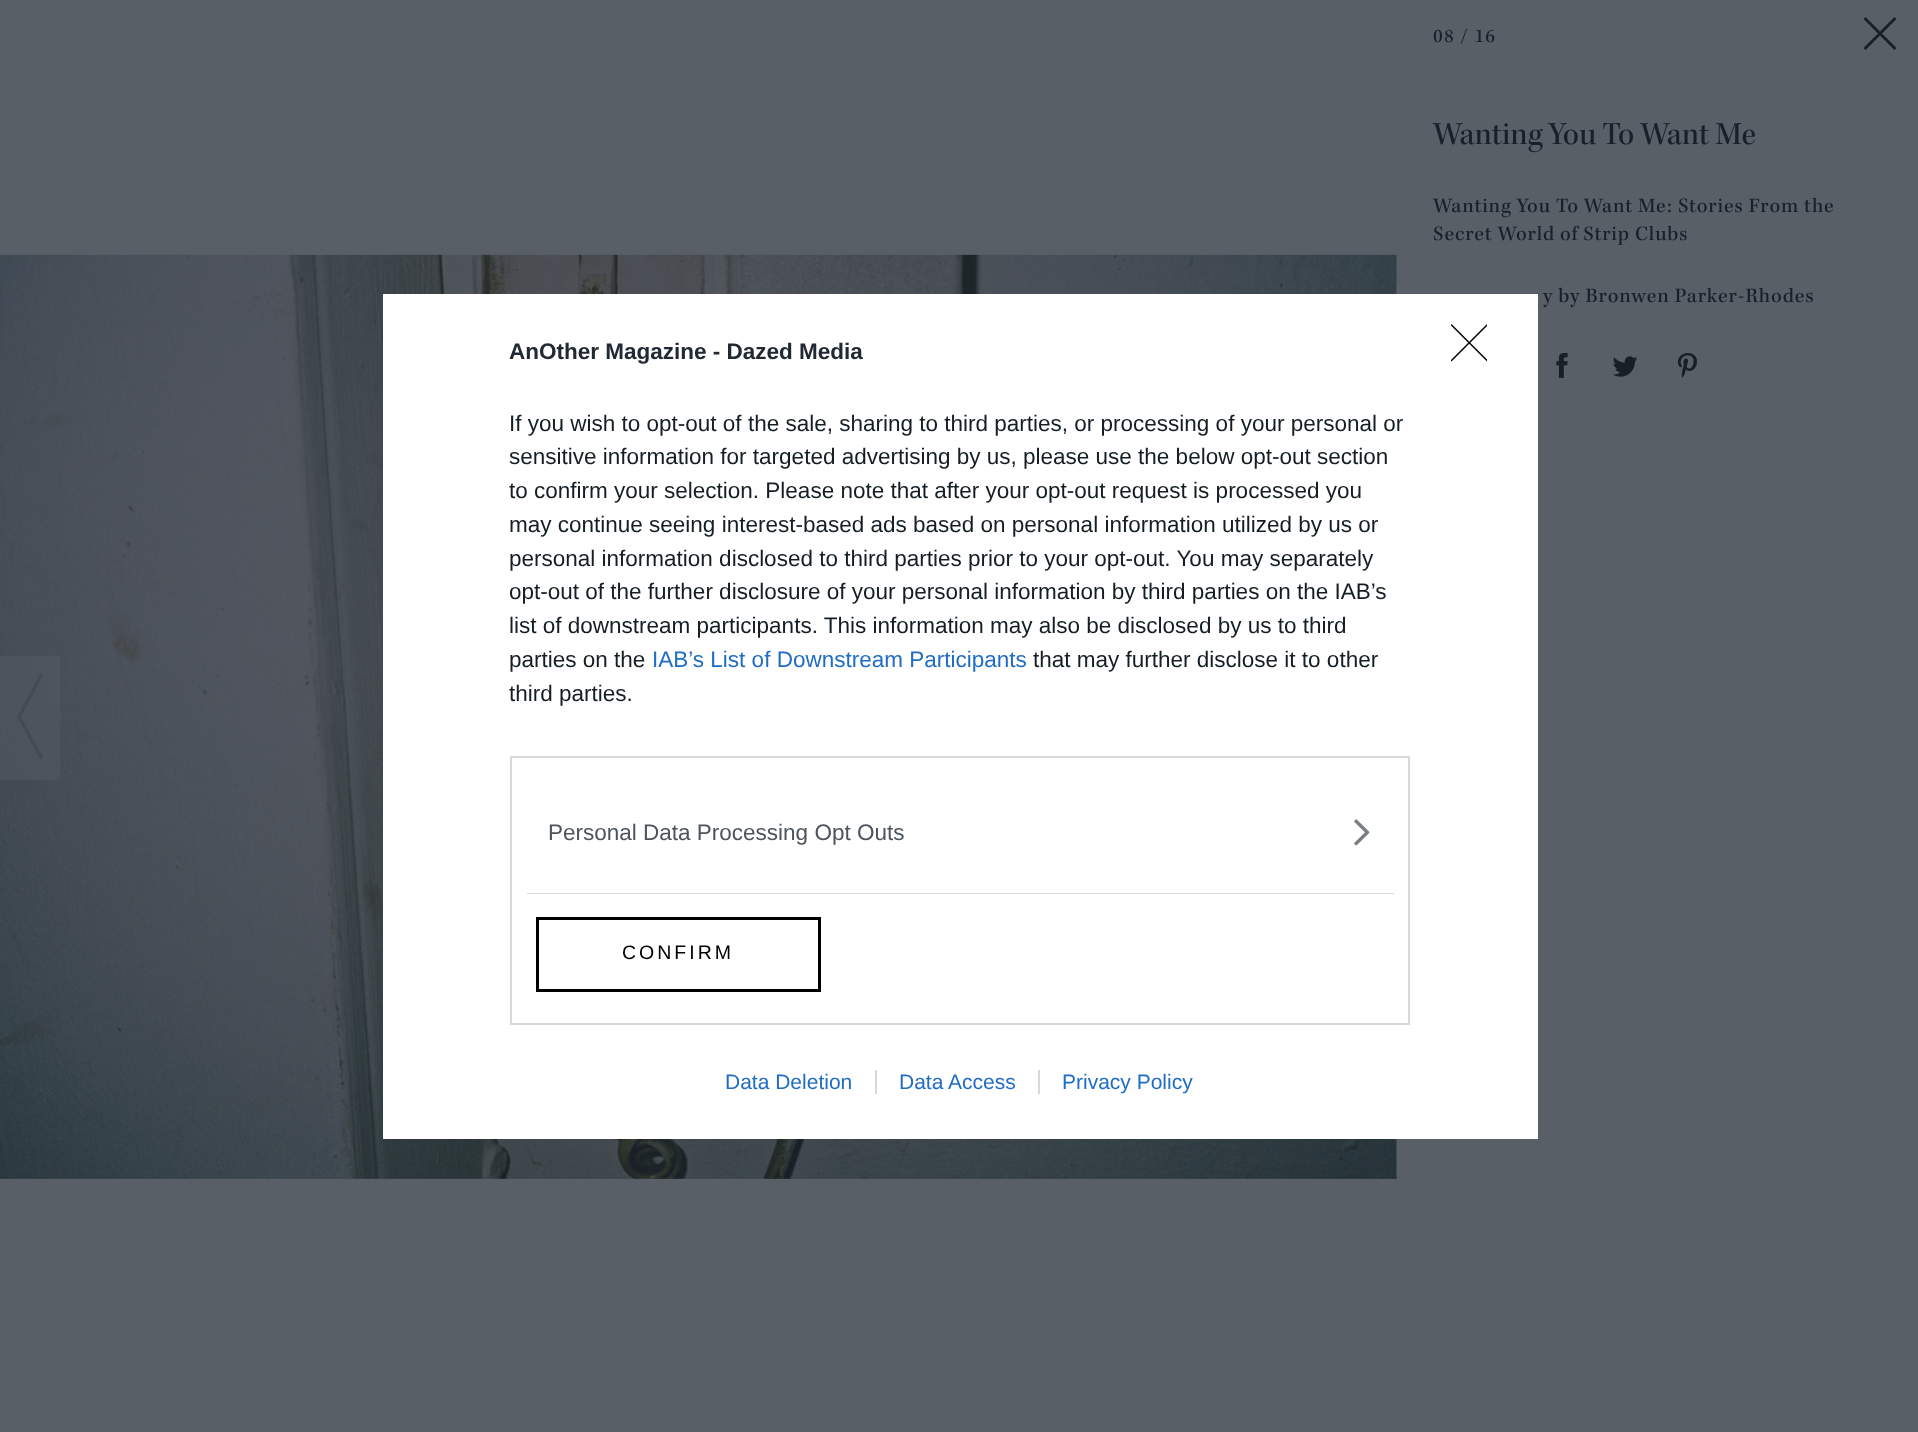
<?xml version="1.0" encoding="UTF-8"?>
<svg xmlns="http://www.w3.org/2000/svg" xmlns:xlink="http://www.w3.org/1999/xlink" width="1918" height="1432">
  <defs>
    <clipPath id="clip1"><rect x="1451" y="324" width="36" height="38" /></clipPath>
  </defs>
  <rect width="100%" height="100%" fill="#595f67" />
  <path d="M 1880 35.5 l -14.5 14.5 l -2 -2 l 14.5 -14.5 l -14.5 -14.5 l 2 -2 l 14.5 14.5 l 14.5 -14.5 l 2 2 l -14.5 14.5 l 14.5 14.5 l -2 2 z" fill="#191f27" />
  <image x="1556" y="352" width="12" height="26" xlink:href="image1.png" />
  <image x="1612" y="356" width="26" height="21" xlink:href="image2.png" />
  <image x="1677" y="353" width="20" height="25" xlink:href="image3.png" />
  <image x="0" y="254" width="1397" height="925" xlink:href="image4.png" />
  <rect y="656" width="60" height="124" fill="#595f67" fill-opacity="0.4" />
  <path d="M 21 717 l 22 40 l -2 4 l -24 -44 l 24 -45 l 2 4 z" fill="#191f27" fill-opacity="0.16" />
  <rect x="383" y="294" width="1155" height="845" fill="#ffffff" />
  <rect x="511" y="757" width="898" height="267" fill="none" stroke="#d8d8d8" stroke-width="2" />
  <rect x="527" y="893" width="867" height="1" fill="#d8d8d8" />
  <image x="1354" y="819" width="16" height="27" xlink:href="image5.png" />
  <rect x="537.5" y="918.5" width="282" height="72" fill="none" stroke="#000000" stroke-width="3" />
  <g clip-path="url(#clip1)">
    <path d="M 1451.5 325 l 35.5 35.5 m 0 -35.5 l -35.5 35.5" fill="none" stroke="#000000" stroke-width="1.5" stroke-linecap="round" stroke-linejoin="round" />
  </g>
  <rect x="875" y="1070" width="2" height="24" fill="#d8d8d8" />
  <rect x="1038" y="1070" width="2" height="24" fill="#d8d8d8" />
  <text x="1433" y="42" style="font-family: 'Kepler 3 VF'; font-size: 19.5px; font-weight: 500; letter-spacing: 1.25px; fill: #191f2b">08 / 16</text>
  <text x="1433" y="144" style="font-family: 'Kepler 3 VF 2'; font-size: 33px; font-weight: 500; fill: #191f2b">Wanting You To Want Me</text>
  <text x="1433" y="212" style="font-family: 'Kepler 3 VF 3'; font-size: 21px; font-weight: 500; letter-spacing: 0.85px; fill: #191f2b">Wanting You To Want Me: Stories From the</text>
  <text x="1433" y="240" style="font-family: 'Kepler 3 VF 3'; font-size: 21px; font-weight: 500; letter-spacing: 0.85px; fill: #191f2b">Secret World of Strip Clubs</text>
  <text x="1543" y="302" style="font-family: 'Kepler 3 VF 3'; font-size: 21px; font-weight: 500; letter-spacing: 0.85px; fill: #191f2b">y by Bronwen Parker-Rhodes</text>
  <text x="509" y="359" style="font-family: Liberation Sans; font-size: 22.5px; font-weight: bold; fill: #212934">AnOther Magazine - Dazed Media</text>
  <text x="509" y="431" style="font-family: Liberation Sans; font-size: 22.5px; fill: #141e23">If you wish to opt-out of the sale, sharing to third parties, or processing of your personal or</text>
  <text x="509" y="464" style="font-family: Liberation Sans; font-size: 22.5px; fill: #141e23">sensitive information for targeted advertising by us, please use the below opt-out section</text>
  <text x="509" y="498" style="font-family: Liberation Sans; font-size: 22.5px; fill: #141e23">to confirm your selection. Please note that after your opt-out request is processed you</text>
  <text x="509" y="532" style="font-family: Liberation Sans; font-size: 22.5px; fill: #141e23">may continue seeing interest-based ads based on personal information utilized by us or</text>
  <text x="509" y="566" style="font-family: Liberation Sans; font-size: 22.5px; fill: #141e23">personal information disclosed to third parties prior to your opt-out. You may separately</text>
  <text x="509" y="599" style="font-family: Liberation Sans; font-size: 22.5px; fill: #141e23">opt-out of the further disclosure of your personal information by third parties on the IAB’s</text>
  <text x="509" y="633" style="font-family: Liberation Sans; font-size: 22.5px; fill: #141e23">list of downstream participants. This information may also be disclosed by us to third</text>
  <text x="509" y="667" style="font-family: Liberation Sans; font-size: 22.5px; fill: #141e23">parties on the</text>
  <text x="652" y="667" style="font-family: Liberation Sans; font-size: 22.5px; fill: #206dc5">IAB’s List of Downstream Participants</text>
  <text x="1033" y="667" style="font-family: Liberation Sans; font-size: 22.5px; fill: #141e23">that may further disclose it to other</text>
  <text x="509" y="701" style="font-family: Liberation Sans; font-size: 22.5px; fill: #141e23">third parties.</text>
  <text x="548" y="840" style="font-family: Liberation Sans; font-size: 22.5px; fill: #4d545d">Personal Data Processing Opt Outs</text>
  <text x="622" y="959" style="font-family: Liberation Sans; font-size: 19.5px; letter-spacing: 3px; fill: #000000">CONFIRM</text>
  <text x="725" y="1089" style="font-family: Liberation Sans; font-size: 21px; fill: #206dc5">Data Deletion</text>
  <text x="899" y="1089" style="font-family: Liberation Sans; font-size: 21px; fill: #206dc5">Data Access</text>
  <text x="1062" y="1089" style="font-family: Liberation Sans; font-size: 21px; fill: #206dc5">Privacy Policy</text>
</svg>
